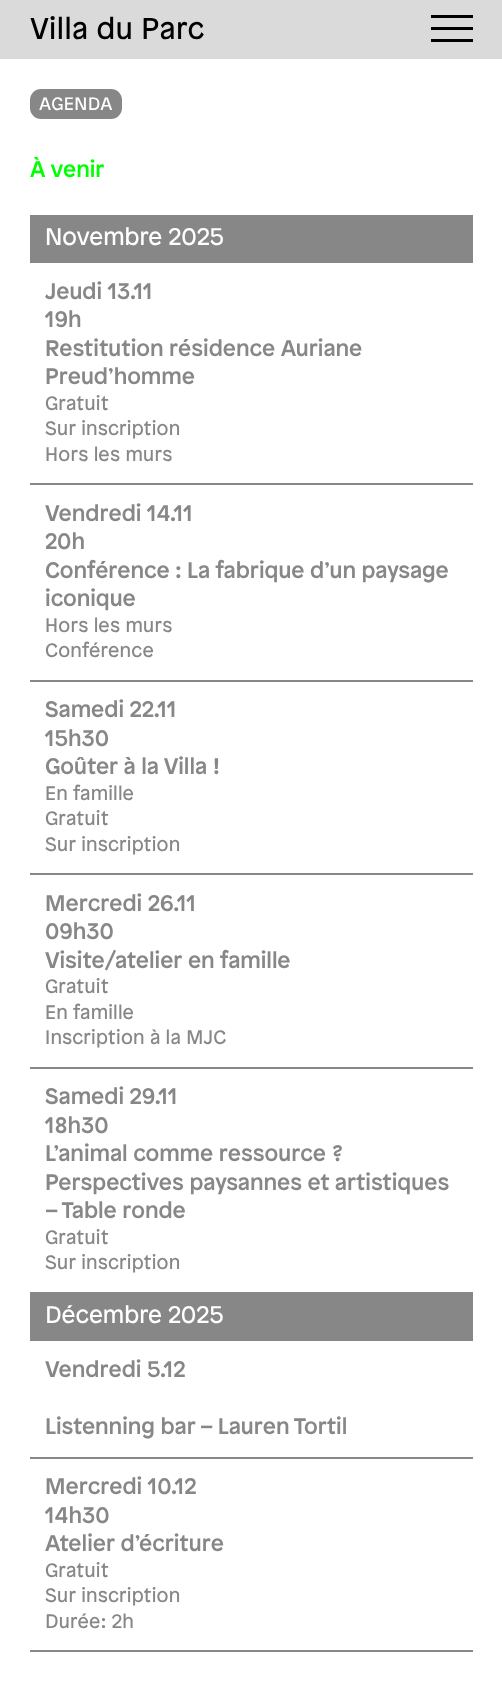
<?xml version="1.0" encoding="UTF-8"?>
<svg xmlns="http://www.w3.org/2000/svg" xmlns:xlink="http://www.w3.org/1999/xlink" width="502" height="1691">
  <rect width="100%" height="100%" fill="#ffffff" />
  <rect width="502" height="59" fill="#dadada" />
  <rect x="431" y="15" width="42" height="3" fill="#000000" />
  <rect x="431" y="27" width="42" height="3" fill="#000000" />
  <rect x="431" y="39" width="42" height="3" fill="#000000" />
  <rect x="30" y="89" width="92" height="30" rx="11" fill="#878787" />
  <rect x="30" y="215" width="443" height="48" fill="#878787" />
  <rect x="30" y="483" width="443" height="2" fill="#878787" />
  <rect x="30" y="680" width="443" height="2" fill="#878787" />
  <rect x="30" y="873" width="443" height="2" fill="#878787" />
  <rect x="30" y="1067" width="443" height="2" fill="#878787" />
  <rect x="30" y="1292" width="443" height="49" fill="#878787" />
  <rect x="30" y="1457" width="443" height="2" fill="#878787" />
  <rect x="30" y="1650" width="443" height="2" fill="#878787" />
  <text x="30" y="39" style="font-family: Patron; font-size: 30px; letter-spacing: 0.5px; fill: #000000">Villa du Parc</text>
  <text x="39" y="110" style="font-family: Patron; font-size: 18px; letter-spacing: 0.5px; fill: #ffffff">AGENDA</text>
  <text x="30" y="177" style="font-family: Patron; font-size: 22.5px; font-weight: 500; fill: #00ff00">À venir</text>
  <text x="45" y="245" style="font-family: Patron; font-size: 24px; fill: #ffffff">Novembre 2025</text>
  <text x="45" y="299" style="font-family: Patron; font-size: 22.5px; font-weight: 500; fill: #878787">Jeudi 13.11</text>
  <text x="45" y="327" style="font-family: Patron; font-size: 22.5px; font-weight: 500; fill: #878787">19h</text>
  <text x="45" y="356" style="font-family: Patron; font-size: 22.5px; font-weight: 500; fill: #878787">Restitution résidence Auriane</text>
  <text x="45" y="384" style="font-family: Patron; font-size: 22.5px; font-weight: 500; fill: #878787">Preud’homme</text>
  <text x="45" y="410" style="font-family: Patron; font-size: 19.5px; letter-spacing: 0.25px; fill: #878787">Gratuit</text>
  <text x="45" y="435" style="font-family: Patron; font-size: 19.5px; letter-spacing: 0.25px; fill: #878787">Sur inscription</text>
  <text x="45" y="461" style="font-family: Patron; font-size: 19.5px; letter-spacing: 0.25px; fill: #878787">Hors les murs</text>
  <text x="45" y="521" style="font-family: Patron; font-size: 22.5px; font-weight: 500; fill: #878787">Vendredi 14.11</text>
  <text x="45" y="549" style="font-family: Patron; font-size: 22.5px; font-weight: 500; fill: #878787">20h</text>
  <text x="45" y="578" style="font-family: Patron; font-size: 22.5px; font-weight: 500; fill: #878787">Conférence : La fabrique d’un paysage</text>
  <text x="45" y="606" style="font-family: Patron; font-size: 22.5px; font-weight: 500; fill: #878787">iconique</text>
  <text x="45" y="632" style="font-family: Patron; font-size: 19.5px; letter-spacing: 0.25px; fill: #878787">Hors les murs</text>
  <text x="45" y="657" style="font-family: Patron; font-size: 19.5px; letter-spacing: 0.25px; fill: #878787">Conférence</text>
  <text x="45" y="717" style="font-family: Patron; font-size: 22.5px; font-weight: 500; fill: #878787">Samedi 22.11</text>
  <text x="45" y="746" style="font-family: Patron; font-size: 22.5px; font-weight: 500; fill: #878787">15h30</text>
  <text x="45" y="774" style="font-family: Patron; font-size: 22.5px; font-weight: 500; fill: #878787">Goûter à la Villa !</text>
  <text x="45" y="800" style="font-family: Patron; font-size: 19.5px; letter-spacing: 0.25px; fill: #878787">En famille</text>
  <text x="45" y="825" style="font-family: Patron; font-size: 19.5px; letter-spacing: 0.25px; fill: #878787">Gratuit</text>
  <text x="45" y="851" style="font-family: Patron; font-size: 19.5px; letter-spacing: 0.25px; fill: #878787">Sur inscription</text>
  <text x="45" y="911" style="font-family: Patron; font-size: 22.5px; font-weight: 500; fill: #878787">Mercredi 26.11</text>
  <text x="45" y="939" style="font-family: Patron; font-size: 22.5px; font-weight: 500; fill: #878787">09h30</text>
  <text x="45" y="968" style="font-family: Patron; font-size: 22.5px; font-weight: 500; fill: #878787">Visite/atelier en famille</text>
  <text x="45" y="993" style="font-family: Patron; font-size: 19.5px; letter-spacing: 0.25px; fill: #878787">Gratuit</text>
  <text x="45" y="1019" style="font-family: Patron; font-size: 19.5px; letter-spacing: 0.25px; fill: #878787">En famille</text>
  <text x="45" y="1044" style="font-family: Patron; font-size: 19.5px; letter-spacing: 0.25px; fill: #878787">Inscription à la MJC</text>
  <text x="45" y="1104" style="font-family: Patron; font-size: 22.5px; font-weight: 500; fill: #878787">Samedi 29.11</text>
  <text x="45" y="1133" style="font-family: Patron; font-size: 22.5px; font-weight: 500; fill: #878787">18h30</text>
  <text x="45" y="1161" style="font-family: Patron; font-size: 22.5px; font-weight: 500; fill: #878787">L’animal comme ressource ?</text>
  <text x="45" y="1190" style="font-family: Patron; font-size: 22.5px; font-weight: 500; fill: #878787">Perspectives paysannes et artistiques</text>
  <text x="45" y="1218" style="font-family: Patron; font-size: 22.5px; font-weight: 500; fill: #878787">– Table ronde</text>
  <text x="45" y="1244" style="font-family: Patron; font-size: 19.5px; letter-spacing: 0.25px; fill: #878787">Gratuit</text>
  <text x="45" y="1269" style="font-family: Patron; font-size: 19.5px; letter-spacing: 0.25px; fill: #878787">Sur inscription</text>
  <text x="45" y="1323" style="font-family: Patron; font-size: 24px; fill: #ffffff">Décembre 2025</text>
  <text x="45" y="1377" style="font-family: Patron; font-size: 22.5px; font-weight: 500; fill: #878787">Vendredi 5.12</text>
  <text x="45" y="1434" style="font-family: Patron; font-size: 22.5px; font-weight: 500; fill: #878787">Listenning bar – Lauren Tortil</text>
  <text x="45" y="1494" style="font-family: Patron; font-size: 22.5px; font-weight: 500; fill: #878787">Mercredi 10.12</text>
  <text x="45" y="1523" style="font-family: Patron; font-size: 22.5px; font-weight: 500; fill: #878787">14h30</text>
  <text x="45" y="1551" style="font-family: Patron; font-size: 22.5px; font-weight: 500; fill: #878787">Atelier d’écriture</text>
  <text x="45" y="1577" style="font-family: Patron; font-size: 19.5px; letter-spacing: 0.25px; fill: #878787">Gratuit</text>
  <text x="45" y="1602" style="font-family: Patron; font-size: 19.5px; letter-spacing: 0.25px; fill: #878787">Sur inscription</text>
  <text x="45" y="1628" style="font-family: Patron; font-size: 19.5px; letter-spacing: 0.25px; fill: #878787">Durée: 2h</text>
</svg>
